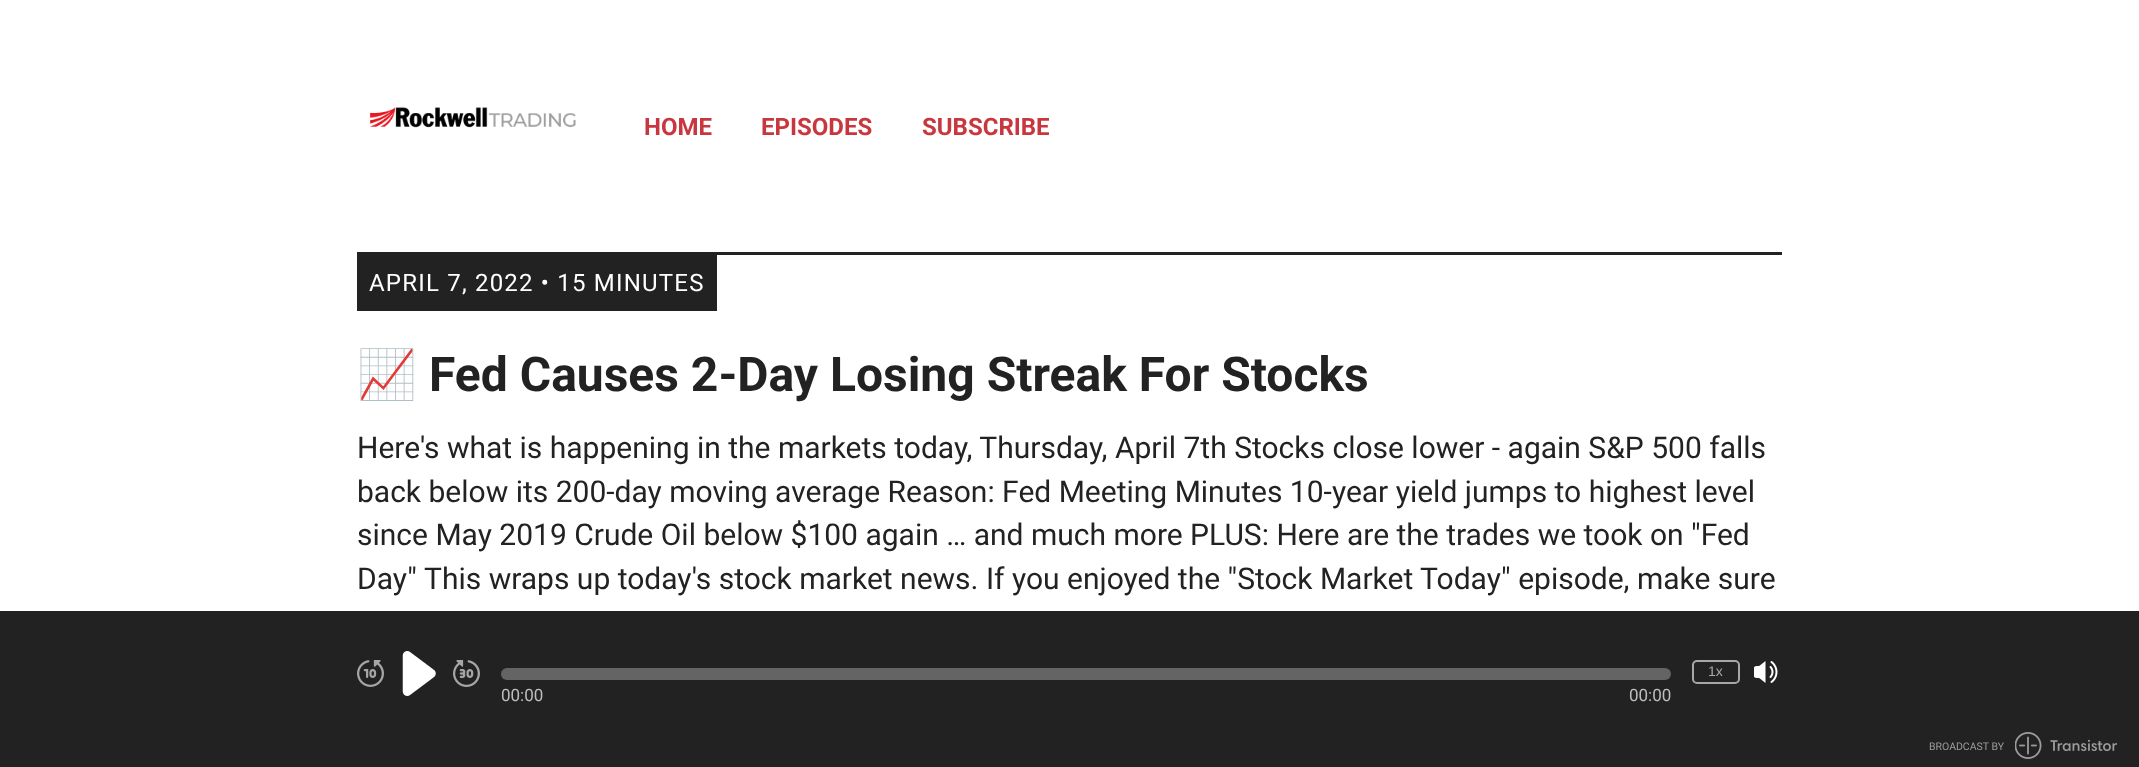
<?xml version="1.0" encoding="UTF-8"?>
<svg xmlns="http://www.w3.org/2000/svg" xmlns:xlink="http://www.w3.org/1999/xlink" width="2139" height="767">
  <rect width="100%" height="100%" fill="#ffffff" />
  <image x="369" y="107" width="207" height="21" xlink:href="image1.png" />
  <rect x="357" y="252" width="1425" height="3" fill="#222222" />
  <rect x="357" y="255" width="360" height="56" fill="#222222" />
  <rect y="611" width="2139" height="156" fill="#222222" />
  <image x="357" y="660" width="27" height="27" xlink:href="image2.png" />
  <image x="402" y="651" width="34" height="45" xlink:href="image3.png" />
  <image x="453" y="660" width="27" height="27" xlink:href="image4.png" />
  <rect x="1693" y="661" width="46" height="22" rx="4" fill="none" stroke="#a7a7a7" stroke-width="2" />
  <image x="1754" y="661" width="24" height="22" xlink:href="image5.png" />
  <rect x="501" y="668" width="1170" height="12" rx="6" fill="#646464" />
  <image x="2015" y="732" width="102" height="27" xlink:href="image6.png" />
  <text x="644" y="135" style="font-family: Roboto; font-size: 24px; font-weight: bold; fill: #c8363e">HOME</text>
  <text x="761" y="135" style="font-family: Roboto; font-size: 24px; font-weight: bold; fill: #c8363e">EPISODES</text>
  <text x="922" y="135" style="font-family: Roboto; font-size: 24px; font-weight: bold; fill: #c8363e">SUBSCRIBE</text>
  <text x="369" y="291" style="font-family: Roboto; font-size: 24px; letter-spacing: 1.2px; fill: #ffffff">APRIL 7, 2022 • 15 MINUTES</text>
  <text x="357" y="391" style="font-family: Noto Color Emoji; font-size: 48px; font-weight: bold; fill: #222222">📈</text>
  <text x="429" y="391" style="font-family: Roboto; font-size: 48px; font-weight: bold; fill: #222222">Fed Causes 2-Day Losing Streak For Stocks</text>
  <text x="357" y="458" style="font-family: Roboto; font-size: 30px; fill: #222222">Here's what is happening in the markets today, Thursday, April 7th Stocks close lower - again S&amp;P 500 falls</text>
  <text x="357" y="502" style="font-family: Roboto; font-size: 30px; fill: #222222">back below its 200-day moving average Reason: Fed Meeting Minutes 10-year yield jumps to highest level</text>
  <text x="357" y="545" style="font-family: Roboto; font-size: 30px; fill: #222222">since May 2019 Crude Oil below $100 again … and much more PLUS: Here are the trades we took on "Fed</text>
  <text x="357" y="589" style="font-family: Roboto; font-size: 30px; fill: #222222">Day"</text>
  <text x="424" y="589" style="font-family: Roboto; font-size: 30px; fill: #222222">This wraps up today's stock market news. If you enjoyed the "Stock Market Today" episode, make sure</text>
  <text x="1708" y="676" style="font-family: Liberation Sans; font-size: 14px; fill: #a7a7a7">1x</text>
  <text x="501" y="701" style="font-family: Roboto; font-size: 17px; fill: #bdbdbd">00:00</text>
  <text x="1629" y="701" style="font-family: Roboto; font-size: 17px; fill: #bdbdbd">00:00</text>
  <text x="1929" y="750" style="font-family: Roboto; font-size: 10.5px; fill: #9c9c9c">BROADCAST BY</text>
</svg>
